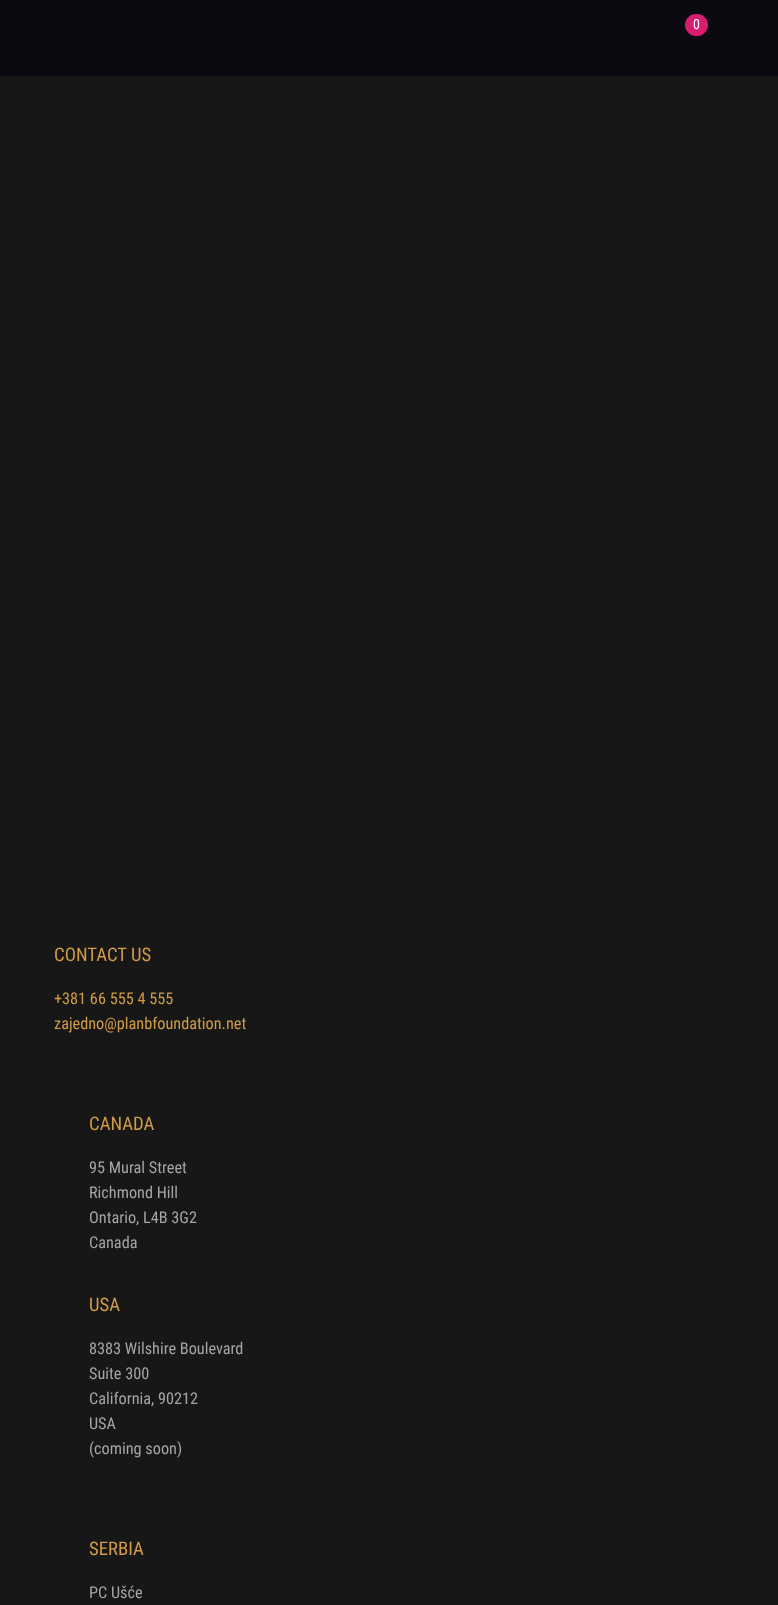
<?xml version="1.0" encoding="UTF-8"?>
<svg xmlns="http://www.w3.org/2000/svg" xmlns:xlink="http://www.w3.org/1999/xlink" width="778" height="1605">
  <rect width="100%" height="100%" fill="#171717" />
  <rect width="778" height="76" fill="#0a0a10" />
  <rect x="685" y="14" width="23" height="22" rx="11" fill="#d71d6d" />
  <text x="693" y="29" style="font-family: Roboto Condensed; font-size: 14px; fill: #ffffff">0</text>
  <text x="54" y="961" style="font-family: Roboto Condensed; font-size: 18.75px; fill: #d19c45">CONTACT US</text>
  <text x="54" y="1004" style="font-family: Roboto Condensed; font-size: 16.25px; fill: #d19c45">+381 66 555 4 555</text>
  <text x="54" y="1029" style="font-family: Roboto Condensed; font-size: 16.25px; fill: #d19c45">zajedno@planbfoundation.net</text>
  <text x="89" y="1130" style="font-family: Roboto Condensed; font-size: 18.75px; fill: #d19c45">CANADA</text>
  <text x="89" y="1173" style="font-family: Roboto Condensed; font-size: 16.25px; fill: #a5a5a6">95 Mural Street</text>
  <text x="89" y="1198" style="font-family: Roboto Condensed; font-size: 16.25px; fill: #a5a5a6">Richmond Hill</text>
  <text x="89" y="1223" style="font-family: Roboto Condensed; font-size: 16.25px; fill: #a5a5a6">Ontario, L4B 3G2</text>
  <text x="89" y="1248" style="font-family: Roboto Condensed; font-size: 16.25px; fill: #a5a5a6">Canada</text>
  <text x="89" y="1311" style="font-family: Roboto Condensed; font-size: 18.75px; fill: #d19c45">USA</text>
  <text x="89" y="1354" style="font-family: Roboto Condensed; font-size: 16.25px; fill: #a5a5a6">8383 Wilshire Boulevard</text>
  <text x="89" y="1379" style="font-family: Roboto Condensed; font-size: 16.25px; fill: #a5a5a6">Suite 300</text>
  <text x="89" y="1404" style="font-family: Roboto Condensed; font-size: 16.25px; fill: #a5a5a6">California, 90212</text>
  <text x="89" y="1429" style="font-family: Roboto Condensed; font-size: 16.25px; fill: #a5a5a6">USA</text>
  <text x="89" y="1454" style="font-family: Roboto Condensed; font-size: 16.25px; fill: #a5a5a6">(coming soon)</text>
  <text x="89" y="1555" style="font-family: Roboto Condensed; font-size: 18.75px; fill: #d19c45">SERBIA</text>
  <text x="89" y="1598" style="font-family: Roboto Condensed; font-size: 16.25px; fill: #a5a5a6">PC Ušće</text>
</svg>
